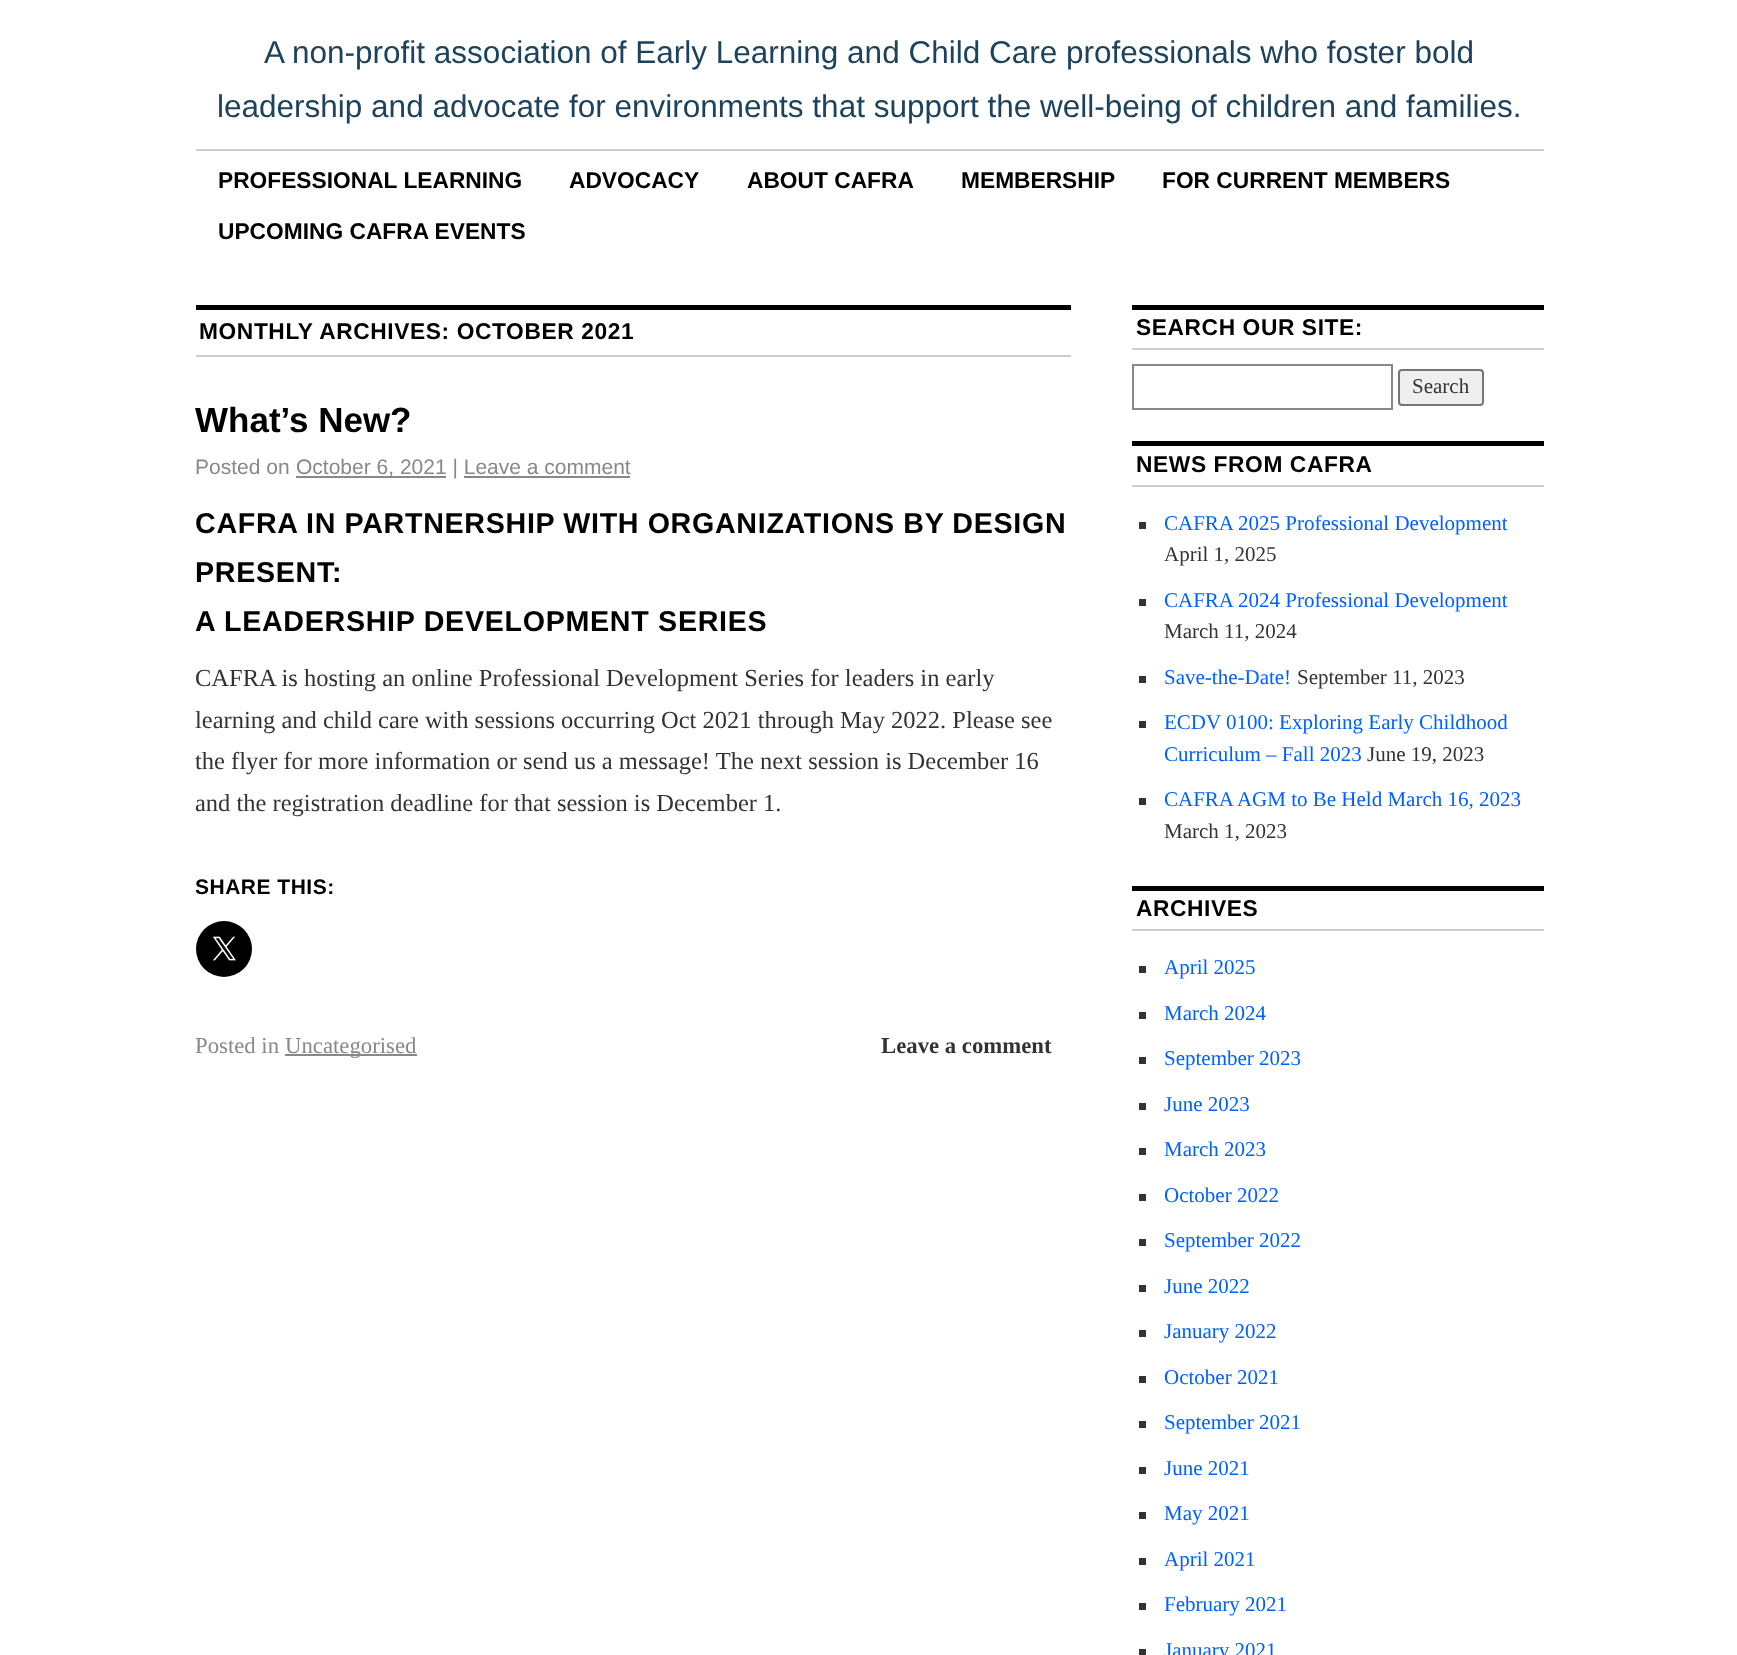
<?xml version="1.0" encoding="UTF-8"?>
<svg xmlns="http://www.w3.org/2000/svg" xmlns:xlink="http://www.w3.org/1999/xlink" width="1737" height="1655">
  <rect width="100%" height="100%" fill="#ffffff" />
  <rect x="196" y="149" width="1348" height="2" fill="#cccccc" />
  <rect x="196" y="305" width="875" height="5" fill="#000000" />
  <rect x="196" y="355" width="875" height="2" fill="#cccccc" />
  <rect x="296" y="476" width="150" height="2" fill="#888888" />
  <rect x="464" y="476" width="166" height="2" fill="#888888" />
  <circle cx="224" cy="949" r="28" fill="#000000" />
  <image x="213" y="936" width="23" height="25" xlink:href="image1.png" />
  <rect x="285" y="1054" width="132" height="2" fill="#888888" />
  <rect x="1132" y="305" width="412" height="5" fill="#000000" />
  <rect x="1132" y="348" width="412" height="2" fill="#cccccc" />
  <rect x="1133" y="365" width="259" height="44" fill="none" stroke="#888888" stroke-width="2" />
  <rect x="1399" y="370" width="84" height="35" rx="3" fill="#efefef" stroke="#767676" stroke-width="2" />
  <rect x="1132" y="441" width="412" height="5" fill="#000000" />
  <rect x="1132" y="485" width="412" height="2" fill="#cccccc" />
  <rect x="1139" y="522" width="7" height="7" fill="#333333" />
  <rect x="1139" y="599" width="7" height="7" fill="#333333" />
  <rect x="1139" y="676" width="7" height="7" fill="#333333" />
  <rect x="1139" y="721" width="7" height="7" fill="#333333" />
  <rect x="1139" y="798" width="7" height="7" fill="#333333" />
  <rect x="1132" y="886" width="412" height="5" fill="#000000" />
  <rect x="1132" y="929" width="412" height="2" fill="#cccccc" />
  <rect x="1139" y="966" width="7" height="7" fill="#333333" />
  <rect x="1139" y="1012" width="7" height="7" fill="#333333" />
  <rect x="1139" y="1057" width="7" height="7" fill="#333333" />
  <rect x="1139" y="1103" width="7" height="7" fill="#333333" />
  <rect x="1139" y="1148" width="7" height="7" fill="#333333" />
  <rect x="1139" y="1194" width="7" height="7" fill="#333333" />
  <rect x="1139" y="1239" width="7" height="7" fill="#333333" />
  <rect x="1139" y="1285" width="7" height="7" fill="#333333" />
  <rect x="1139" y="1330" width="7" height="7" fill="#333333" />
  <rect x="1139" y="1376" width="7" height="7" fill="#333333" />
  <rect x="1139" y="1421" width="7" height="7" fill="#333333" />
  <rect x="1139" y="1467" width="7" height="7" fill="#333333" />
  <rect x="1139" y="1512" width="7" height="7" fill="#333333" />
  <rect x="1139" y="1558" width="7" height="7" fill="#333333" />
  <rect x="1139" y="1603" width="7" height="7" fill="#333333" />
  <rect x="1139" y="1649" width="7" height="6" fill="#333333" />
  <text x="264" y="63" style="font-family: Liberation Sans; font-size: 31.5px; fill: #1d425e">A non-profit association of Early Learning and Child Care professionals who foster bold</text>
  <text x="217" y="117" style="font-family: Liberation Sans; font-size: 31.5px; fill: #1d425e">leadership and advocate for environments that support the well-being of children and families.</text>
  <text x="218" y="188" style="font-family: Liberation Sans; font-size: 22.75px; font-weight: bold; fill: #000000">PROFESSIONAL LEARNING</text>
  <text x="569" y="188" style="font-family: Liberation Sans; font-size: 22.75px; font-weight: bold; fill: #000000">ADVOCACY</text>
  <text x="747" y="188" style="font-family: Liberation Sans; font-size: 22.75px; font-weight: bold; fill: #000000">ABOUT CAFRA</text>
  <text x="961" y="188" style="font-family: Liberation Sans; font-size: 22.75px; font-weight: bold; fill: #000000">MEMBERSHIP</text>
  <text x="1162" y="188" style="font-family: Liberation Sans; font-size: 22.75px; font-weight: bold; fill: #000000">FOR CURRENT MEMBERS</text>
  <text x="218" y="239" style="font-family: Liberation Sans; font-size: 22.75px; font-weight: bold; fill: #000000">UPCOMING CAFRA EVENTS</text>
  <text x="199" y="339" style="font-family: Liberation Sans; font-size: 22.75px; font-weight: bold; letter-spacing: 0.6px; fill: #000000">MONTHLY ARCHIVES: OCTOBER 2021</text>
  <text x="195" y="432" style="font-family: Liberation Sans; font-size: 35px; font-weight: bold; fill: #000000">What’s New?</text>
  <text x="195" y="474" style="font-family: Liberation Sans; font-size: 21px; fill: #888888">Posted on</text>
  <text x="296" y="474" style="font-family: Liberation Sans; font-size: 21px; fill: #888888">October 6, 2021 | Leave a comment</text>
  <text x="195" y="533" word-spacing="-0.25" style="font-family: Liberation Sans; font-size: 28.65px; font-weight: bold; letter-spacing: 0.7px; fill: #000000">CAFRA IN PARTNERSHIP WITH ORGANIZATIONS BY DESIGN</text>
  <text x="195" y="582" style="font-family: Liberation Sans; font-size: 28.65px; font-weight: bold; letter-spacing: 0.7px; fill: #000000">PRESENT:</text>
  <text x="195" y="631" style="font-family: Liberation Sans; font-size: 28.65px; font-weight: bold; letter-spacing: 0.7px; fill: #000000">A LEADERSHIP DEVELOPMENT SERIES</text>
  <text x="195" y="686" style="font-family: Liberation Serif; font-size: 24.5px; fill: #333333">CAFRA is hosting an online Professional Development Series for leaders in early</text>
  <text x="195" y="728" style="font-family: Liberation Serif; font-size: 24.5px; fill: #333333">learning and child care with sessions occurring Oct 2021 through May 2022. Please see</text>
  <text x="195" y="769" style="font-family: Liberation Serif; font-size: 24.5px; fill: #333333">the flyer for more information or send us a message! The next session is December 16</text>
  <text x="195" y="811" style="font-family: Liberation Serif; font-size: 24.5px; fill: #333333">and the registration deadline for that session is December 1.</text>
  <text x="195" y="894" style="font-family: Liberation Sans; font-size: 21px; font-weight: bold; letter-spacing: 0.5px; fill: #000000">SHARE THIS:</text>
  <text x="195" y="1053" style="font-family: Liberation Serif; font-size: 22.75px; fill: #888888">Posted in</text>
  <text x="285" y="1053" style="font-family: Liberation Serif; font-size: 22.75px; fill: #888888">Uncategorised</text>
  <text x="881" y="1053" style="font-family: Liberation Serif; font-size: 22.75px; font-weight: bold; fill: #333333">Leave a comment</text>
  <text x="1136" y="335" style="font-family: Liberation Sans; font-size: 22.75px; font-weight: bold; letter-spacing: 0.6px; fill: #000000">SEARCH OUR SITE:</text>
  <text x="1412" y="393" style="font-family: Liberation Serif; font-size: 21px; fill: #333333">Search</text>
  <text x="1136" y="472" style="font-family: Liberation Sans; font-size: 22.75px; font-weight: bold; letter-spacing: 0.6px; fill: #000000">NEWS FROM CAFRA</text>
  <text x="1164" y="530" style="font-family: Liberation Serif; font-size: 21px; fill: #0060ff">CAFRA 2025 Professional Development</text>
  <text x="1164" y="561" style="font-family: Liberation Serif; font-size: 21px; fill: #333333">April 1, 2025</text>
  <text x="1164" y="607" style="font-family: Liberation Serif; font-size: 21px; fill: #0060ff">CAFRA 2024 Professional Development</text>
  <text x="1164" y="638" style="font-family: Liberation Serif; font-size: 21px; fill: #333333">March 11, 2024</text>
  <text x="1164" y="684" style="font-family: Liberation Serif; font-size: 21px; fill: #0060ff">Save-the-Date!</text>
  <text x="1297" y="684" style="font-family: Liberation Serif; font-size: 21px; fill: #333333">September 11, 2023</text>
  <text x="1164" y="729" style="font-family: Liberation Serif; font-size: 21px; fill: #0060ff">ECDV 0100: Exploring Early Childhood</text>
  <text x="1164" y="761" style="font-family: Liberation Serif; font-size: 21px; fill: #0060ff">Curriculum – Fall 2023</text>
  <text x="1367" y="761" style="font-family: Liberation Serif; font-size: 21px; fill: #333333">June 19, 2023</text>
  <text x="1164" y="806" style="font-family: Liberation Serif; font-size: 21px; fill: #0060ff">CAFRA AGM to Be Held March 16, 2023</text>
  <text x="1164" y="838" style="font-family: Liberation Serif; font-size: 21px; fill: #333333">March 1, 2023</text>
  <text x="1136" y="916" style="font-family: Liberation Sans; font-size: 22.75px; font-weight: bold; letter-spacing: 0.6px; fill: #000000">ARCHIVES</text>
  <text x="1164" y="974" style="font-family: Liberation Serif; font-size: 21px; fill: #0060ff">April 2025</text>
  <text x="1164" y="1020" style="font-family: Liberation Serif; font-size: 21px; fill: #0060ff">March 2024</text>
  <text x="1164" y="1065" style="font-family: Liberation Serif; font-size: 21px; fill: #0060ff">September 2023</text>
  <text x="1164" y="1111" style="font-family: Liberation Serif; font-size: 21px; fill: #0060ff">June 2023</text>
  <text x="1164" y="1156" style="font-family: Liberation Serif; font-size: 21px; fill: #0060ff">March 2023</text>
  <text x="1164" y="1202" style="font-family: Liberation Serif; font-size: 21px; fill: #0060ff">October 2022</text>
  <text x="1164" y="1247" style="font-family: Liberation Serif; font-size: 21px; fill: #0060ff">September 2022</text>
  <text x="1164" y="1293" style="font-family: Liberation Serif; font-size: 21px; fill: #0060ff">June 2022</text>
  <text x="1164" y="1338" style="font-family: Liberation Serif; font-size: 21px; fill: #0060ff">January 2022</text>
  <text x="1164" y="1384" style="font-family: Liberation Serif; font-size: 21px; fill: #0060ff">October 2021</text>
  <text x="1164" y="1429" style="font-family: Liberation Serif; font-size: 21px; fill: #0060ff">September 2021</text>
  <text x="1164" y="1475" style="font-family: Liberation Serif; font-size: 21px; fill: #0060ff">June 2021</text>
  <text x="1164" y="1520" style="font-family: Liberation Serif; font-size: 21px; fill: #0060ff">May 2021</text>
  <text x="1164" y="1566" style="font-family: Liberation Serif; font-size: 21px; fill: #0060ff">April 2021</text>
  <text x="1164" y="1611" style="font-family: Liberation Serif; font-size: 21px; fill: #0060ff">February 2021</text>
  <text x="1164" y="1657" style="font-family: Liberation Serif; font-size: 21px; fill: #0060ff">January 2021</text>
</svg>
